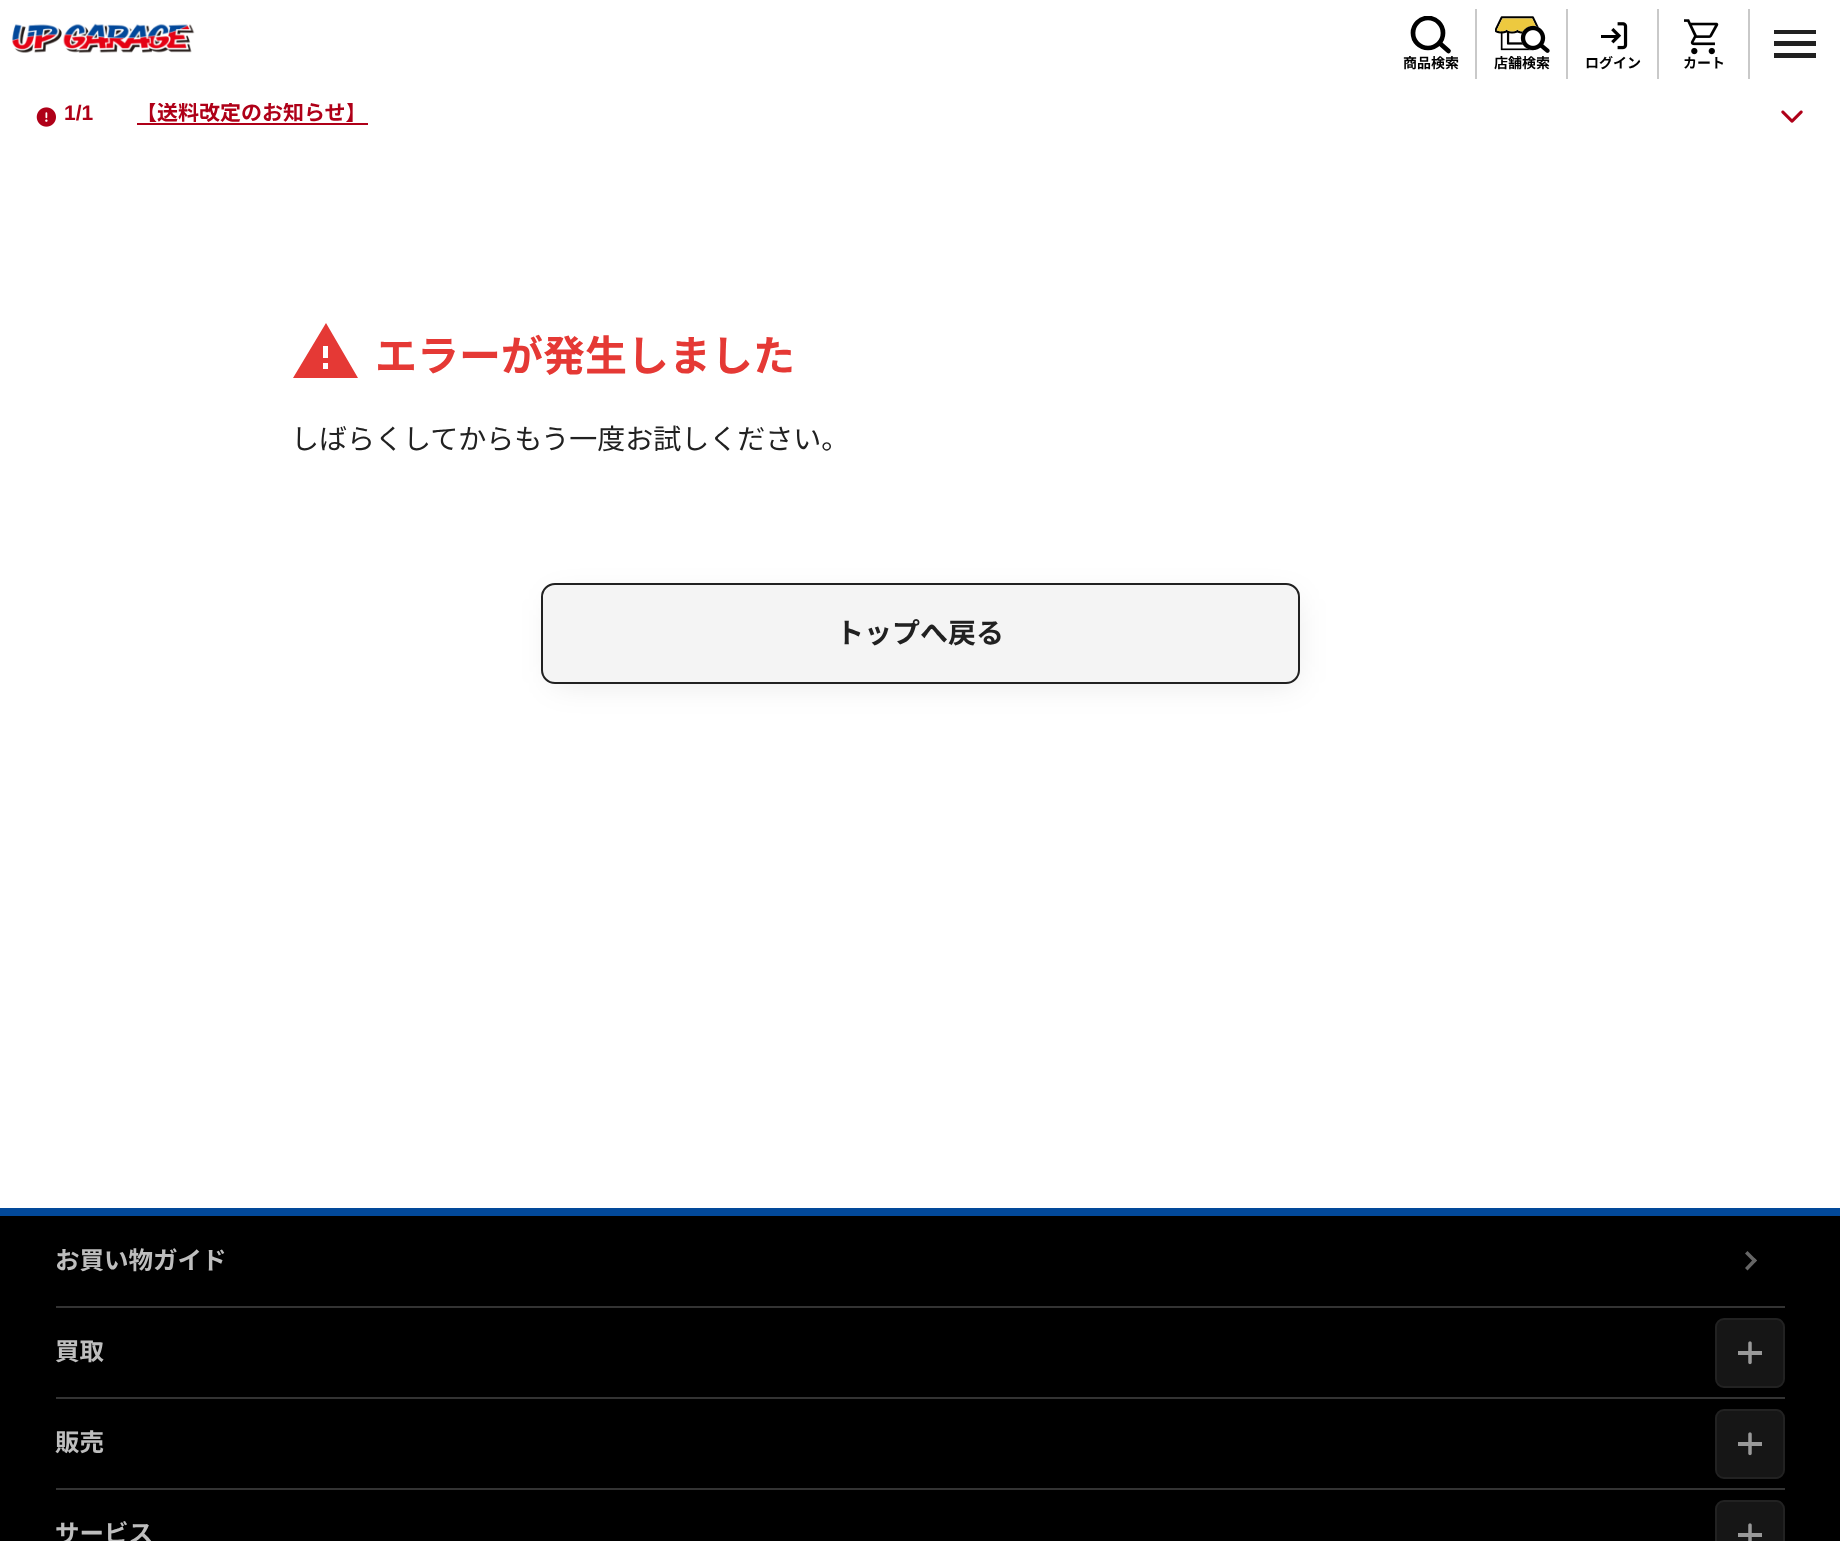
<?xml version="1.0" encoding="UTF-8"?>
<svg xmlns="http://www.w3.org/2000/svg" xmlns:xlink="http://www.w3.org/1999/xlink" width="1840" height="1541">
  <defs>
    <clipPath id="clip1"><rect x="1404" y="16" width="56" height="38" /></clipPath>
    <clipPath id="clip2"><rect x="137" y="103" width="1643" height="23" /></clipPath>
  </defs>
  <rect width="100%" height="100%" fill="#ffffff" />
  <image x="11" y="23" width="184" height="30" xlink:href="image1.png" />
  <path d="M 1774 30 h 42 v 4 h -42 z m 0 16 v -5 h 42 v 5 z m 0 12 v -5 h 42 v 5 z" fill="#212121" />
  <rect x="1475" y="9" width="2" height="70" fill="#c9c9c9" />
  <g clip-path="url(#clip1)">
    <circle cx="1428" cy="33" r="15" fill="none" stroke="#000000" stroke-width="4.7" />
  </g>
  <path d="M 1440 43.5 l 8.5 7.5" fill="none" stroke="#000000" stroke-width="4.7" stroke-linecap="round" />
  <rect x="1566" y="9" width="2" height="70" fill="#c9c9c9" />
  <image x="1495" y="16" width="55" height="37" xlink:href="image2.png" />
  <rect x="1657" y="9" width="2" height="70" fill="#c9c9c9" />
  <image x="1601" y="22" width="27" height="28" xlink:href="image3.png" />
  <rect x="1748" y="9" width="2" height="70" fill="#c9c9c9" />
  <image x="1684" y="19" width="35" height="36" xlink:href="image4.png" />
  <image x="36" y="107" width="20" height="20" xlink:href="image5.png" />
  <rect x="137" y="123" width="231" height="2" fill="#af0018" />
  <image x="1781" y="110" width="22" height="13" xlink:href="image6.png" />
  <path d="M 328 358 v -12 h -5 v 12 z m 0 11 v -6 h -5 v 6 z m -35 9 l 33 -55 l 32 55 z" fill="#e53935" />
  <rect x="553" y="599" width="742" height="84" rx="5" fill="#000000" fill-opacity="0.1" filter="blur(16px)" />
  <rect x="542" y="584" width="757" height="99" rx="13" fill="#f4f4f4" stroke="#212121" stroke-width="2" />
  <rect y="1216" width="1840" height="325" fill="#000000" />
  <rect y="1208" width="1840" height="8" fill="#02499a" />
  <path d="M 1747.5 1251 l 9.5 9.5 l -2.5 2.5 l -9.5 -9.5 z" fill="#666666" />
  <path d="M 1754.5 1258 l 2.5 2.5 l -9.5 10 l -2.5 -2.5 z" fill="#666666" />
  <rect x="56" y="1306" width="1729" height="2" fill="#333333" />
  <rect x="1716" y="1319" width="68" height="68" rx="8" fill="#161616" stroke="#222222" stroke-width="2" />
  <image x="1748" y="1341" width="4" height="24" xlink:href="image7.png" />
  <rect x="1738" y="1351" width="24" height="4" fill="#999999" />
  <rect x="56" y="1397" width="1729" height="2" fill="#333333" />
  <rect x="1716" y="1410" width="68" height="68" rx="8" fill="#161616" stroke="#222222" stroke-width="2" />
  <image x="1748" y="1432" width="4" height="24" xlink:href="image7.png" />
  <rect x="1738" y="1442" width="24" height="4" fill="#999999" />
  <rect x="56" y="1488" width="1729" height="2" fill="#333333" />
  <rect x="1716" y="1501" width="68" height="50" rx="8" fill="#161616" stroke="#222222" stroke-width="2" />
  <image x="1748" y="1523" width="4" height="18" xlink:href="image8.png" />
  <rect x="1738" y="1533" width="24" height="4" fill="#999999" />
  <text x="1403" y="68" style="font-family: Noto Sans JP; font-size: 14px; font-weight: bold; fill: #000000">商品検索</text>
  <text x="1494" y="68" style="font-family: Noto Sans JP; font-size: 14px; font-weight: bold; fill: #000000">店舗検索</text>
  <text x="1585" y="68" style="font-family: Noto Sans JP; font-size: 14px; font-weight: bold; fill: #000000">ログイン</text>
  <text x="1683" y="68" style="font-family: Noto Sans JP; font-size: 14px; font-weight: bold; fill: #000000">カート</text>
  <text x="64" y="120" style="font-family: Liberation Sans; font-size: 21px; font-weight: bold; fill: #af0018">1/1</text>
  <g clip-path="url(#clip2)">
    <text x="136" y="120" style="font-family: Noto Sans JP; font-size: 21px; font-weight: bold; fill: #af0018">【送料改定のお知らせ】</text>
  </g>
  <text x="375" y="371" style="font-family: Noto Sans JP; font-size: 42px; font-weight: bold; fill: #e53935">エラーが発生しました</text>
  <text x="291" y="449" style="font-family: Noto Sans JP; font-size: 28px; fill: #212121">しばらくしてからもう一度お試しください。</text>
  <text x="836" y="643" style="font-family: Noto Sans JP; font-size: 28px; font-weight: bold; fill: #212121">トップへ戻る</text>
  <text x="55" y="1269" style="font-family: Noto Sans JP; font-size: 24.5px; font-weight: bold; fill: #bebebe">お買い物ガイド</text>
  <text x="55" y="1360" style="font-family: Noto Sans JP; font-size: 24.5px; font-weight: bold; fill: #bebebe">買取</text>
  <text x="55" y="1451" style="font-family: Noto Sans JP; font-size: 24.5px; font-weight: bold; fill: #bebebe">販売</text>
  <text x="55" y="1542" style="font-family: Noto Sans JP; font-size: 24.5px; font-weight: bold; fill: #bebebe">サービス</text>
</svg>
